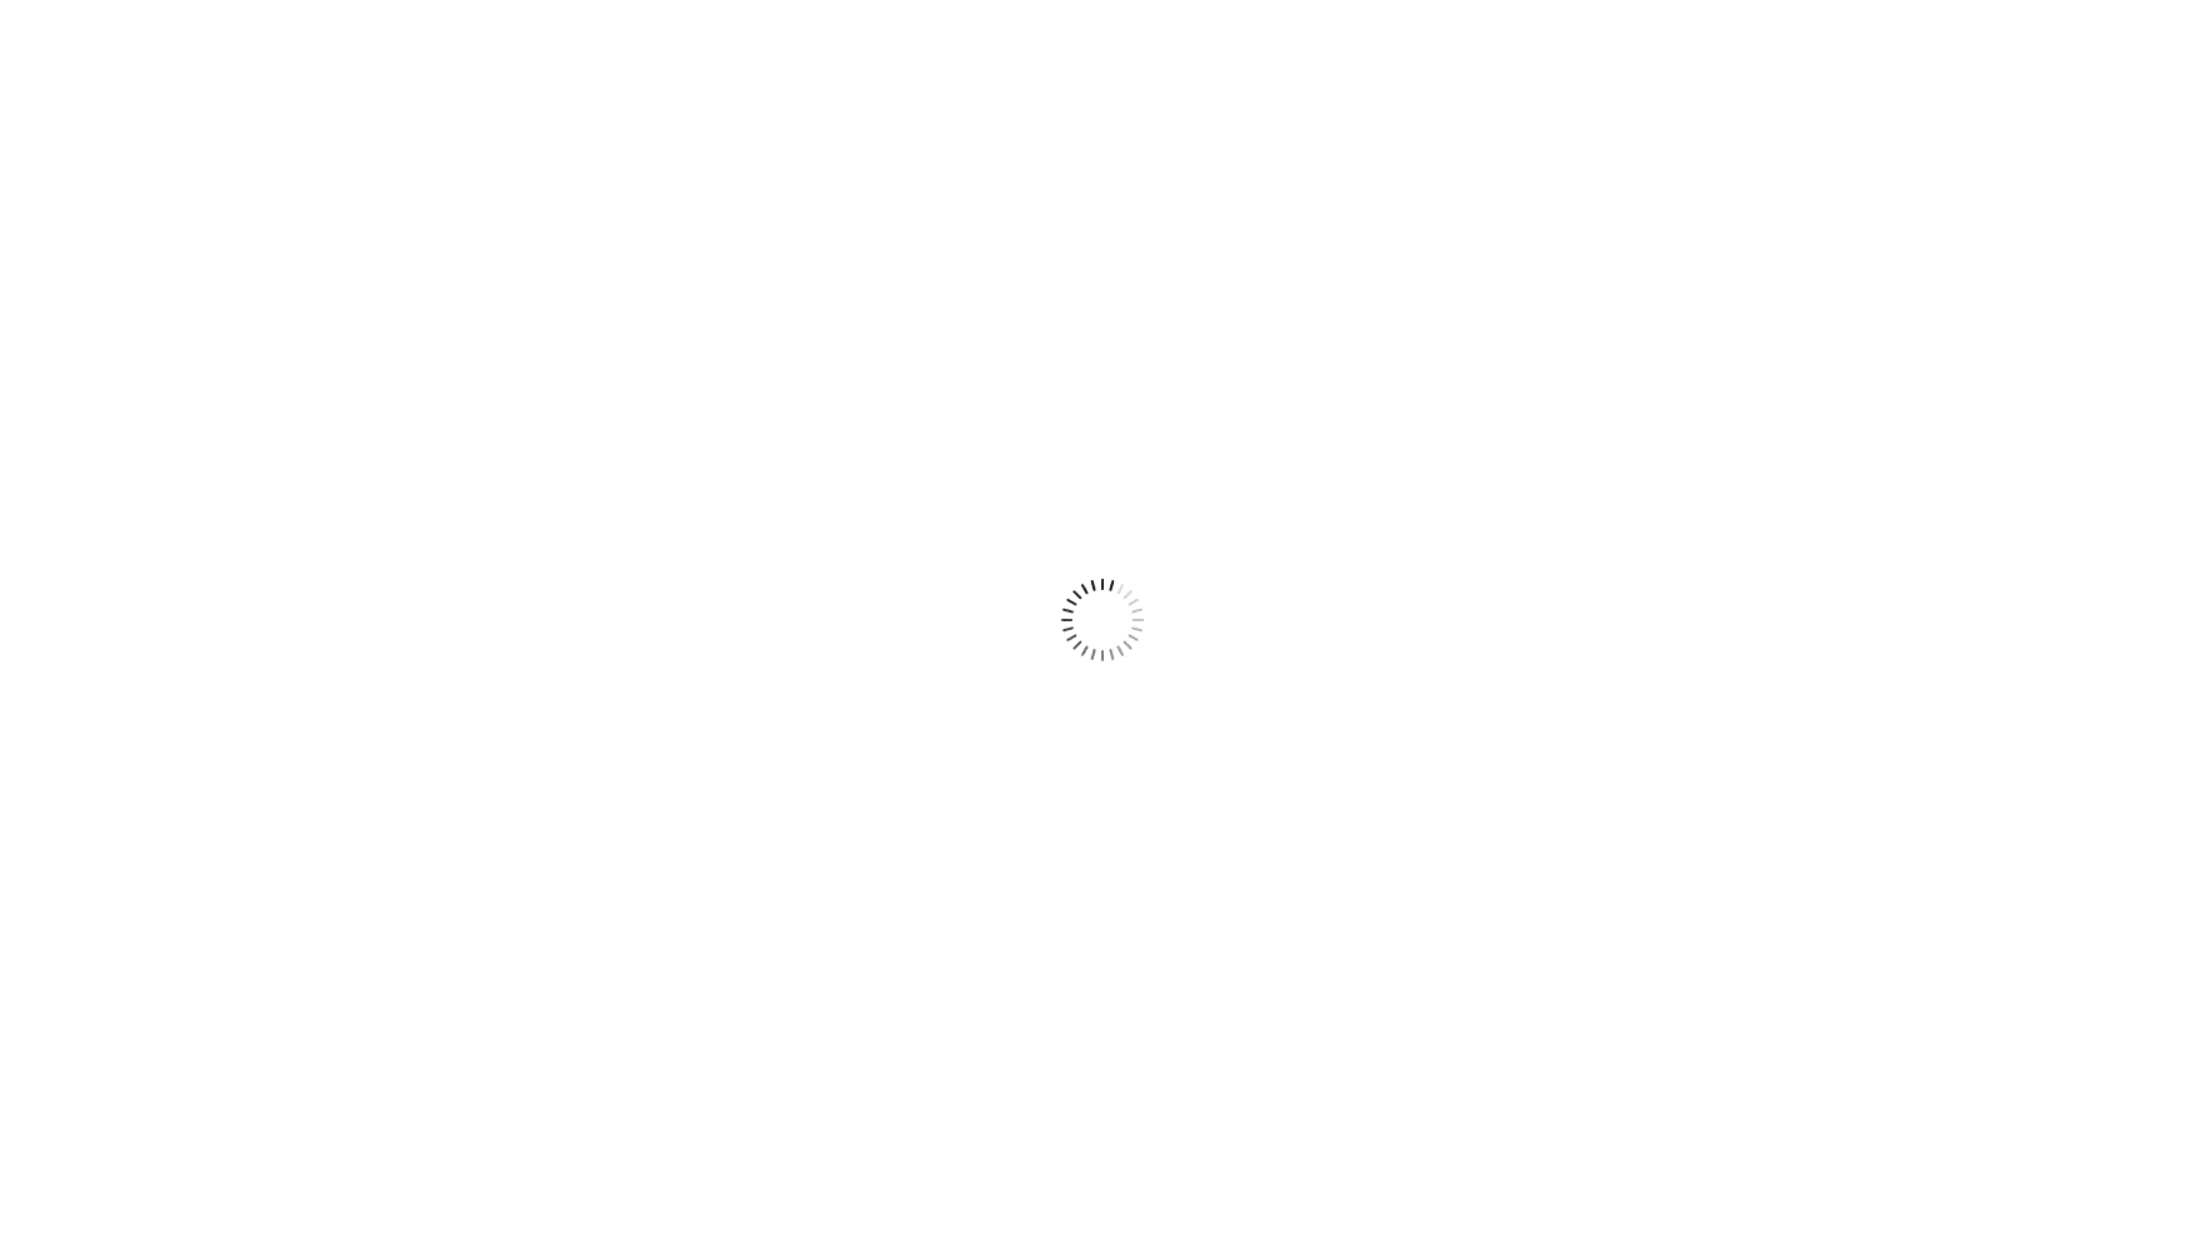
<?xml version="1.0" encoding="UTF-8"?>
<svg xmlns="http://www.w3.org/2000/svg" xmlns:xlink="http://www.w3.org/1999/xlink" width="2203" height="1238">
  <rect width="100%" height="100%" fill="#ffffff" />
  <image x="1061" y="578" width="83" height="84" xlink:href="image1.png" />
</svg>
